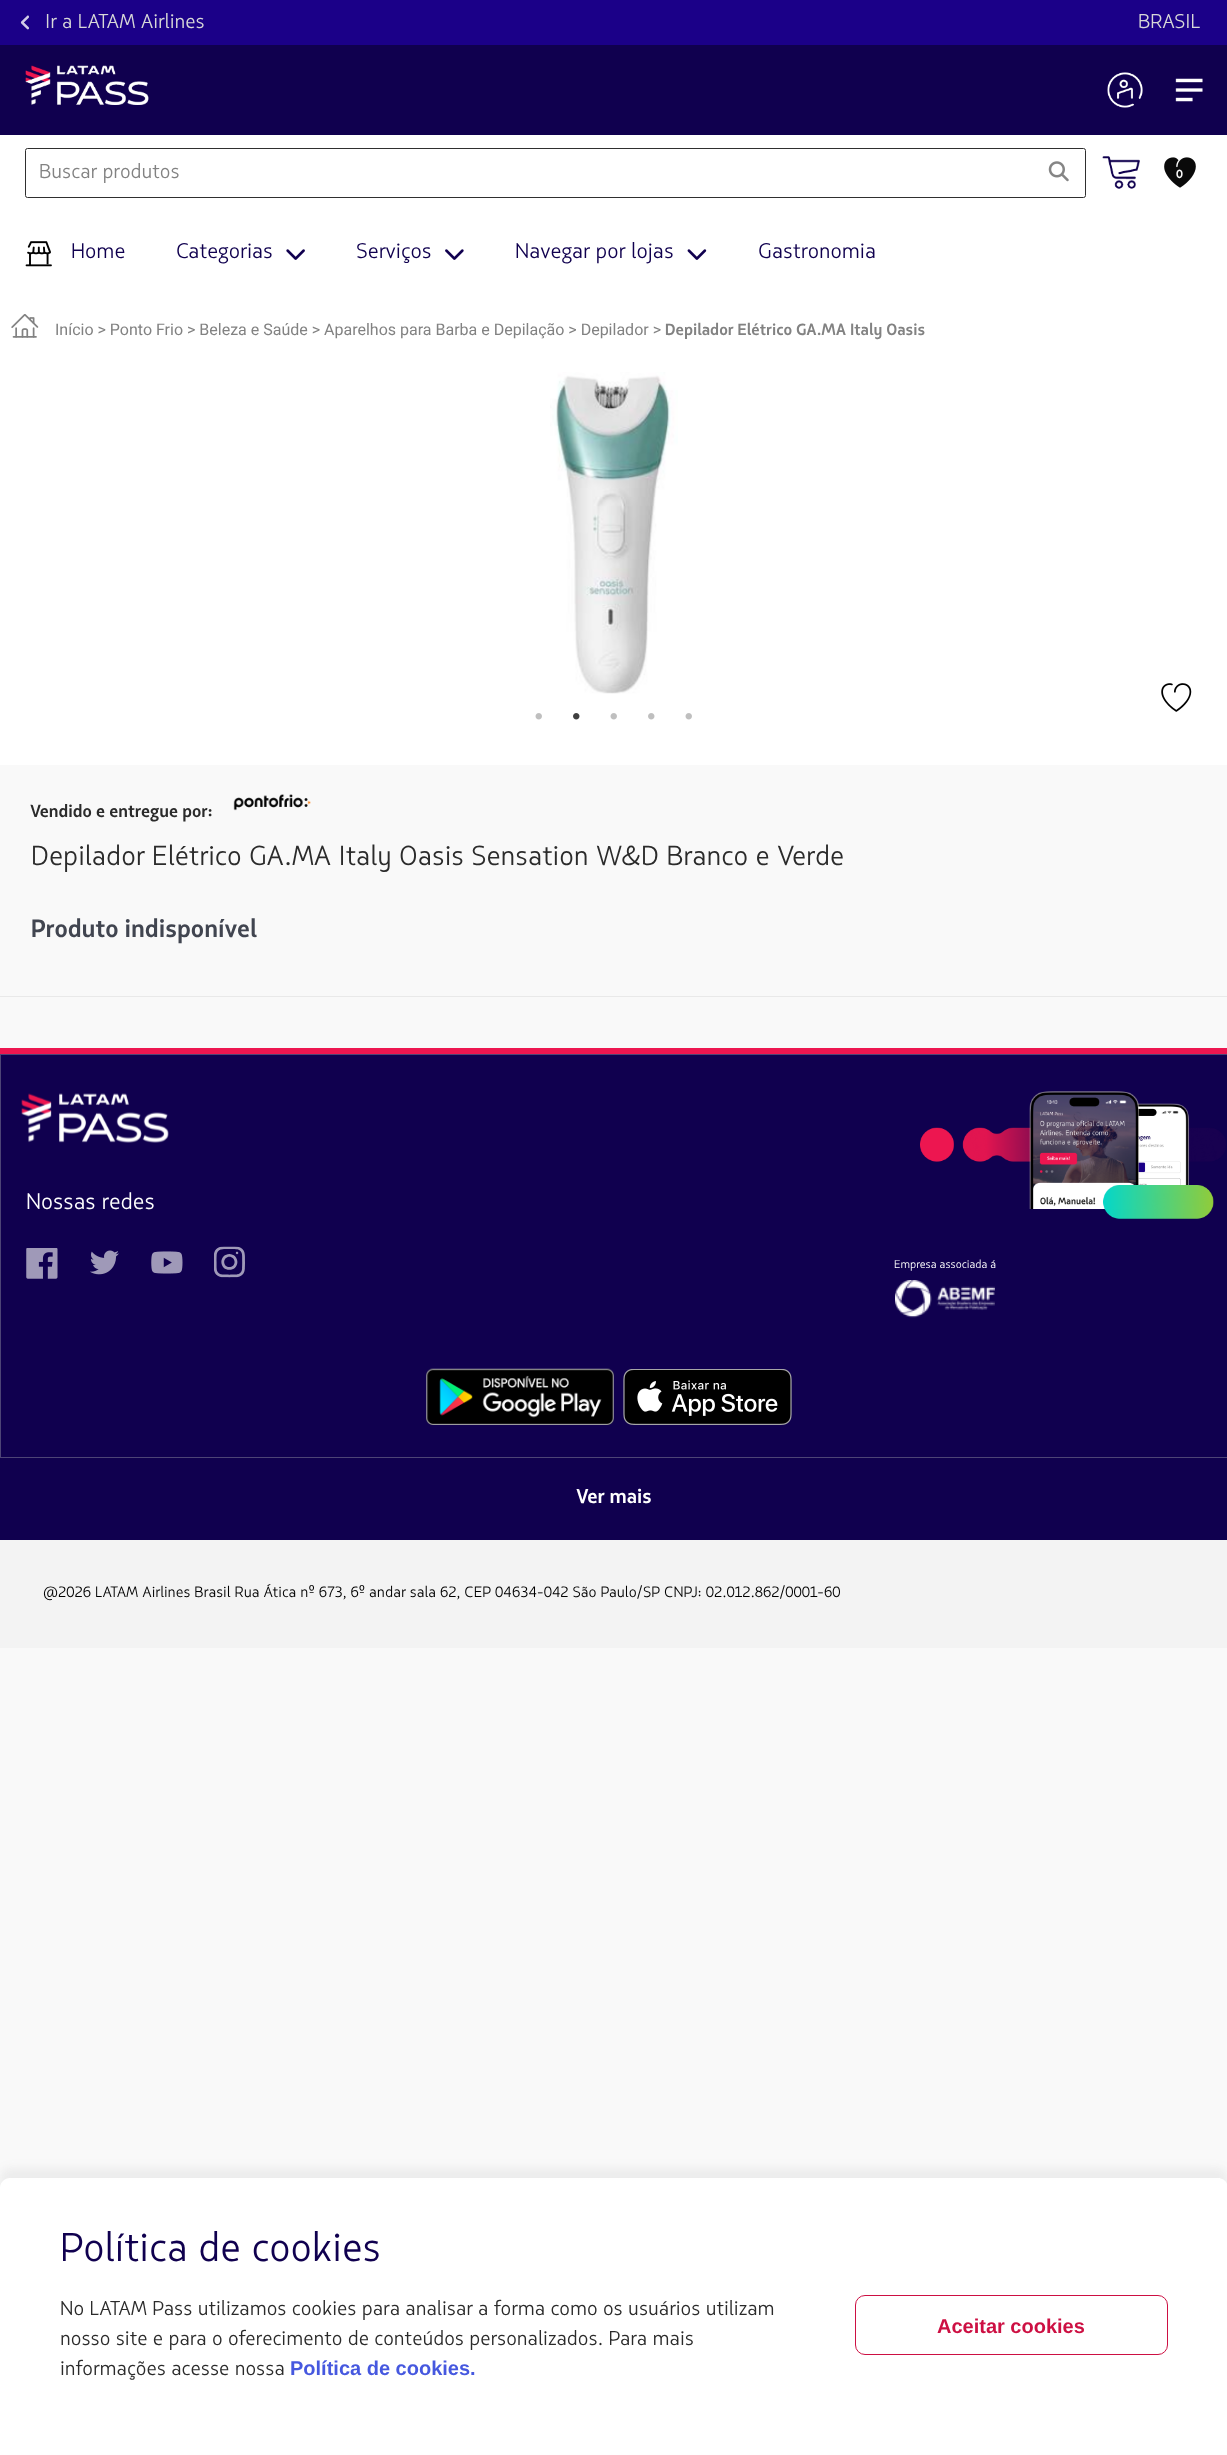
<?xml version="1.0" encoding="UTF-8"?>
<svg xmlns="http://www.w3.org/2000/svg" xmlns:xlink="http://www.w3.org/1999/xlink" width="1227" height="2455">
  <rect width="100%" height="100%" fill="#f9f9f9" />
  <rect width="1227" height="45" fill="#1b0088" />
  <image x="20" y="15" width="9" height="15" xlink:href="image1.png" />
  <rect y="45" width="1227" height="90" fill="#10004f" />
  <image x="25" y="65" width="124" height="40" xlink:href="image2.png" />
  <image x="1107" y="72" width="36" height="36" xlink:href="image3.png" />
  <image x="1175" y="78" width="28" height="24" xlink:href="image4.png" />
  <rect y="135" width="1227" height="630" fill="#ffffff" />
  <rect x="25.5" y="148.5" width="1060" height="49" rx="2" fill="none" stroke="#2f2f2f" />
  <image x="1048" y="161" width="21" height="21" xlink:href="image5.png" />
  <image x="1102" y="156" width="38" height="33" xlink:href="image6.png" />
  <image x="1164" y="157" width="32" height="31" xlink:href="image7.png" />
  <image x="25" y="241" width="27" height="26" xlink:href="image8.png" />
  <image x="286" y="249" width="19" height="11" xlink:href="image9.png" />
  <image x="445" y="249" width="19" height="11" xlink:href="image10.png" />
  <image x="687" y="249" width="20" height="11" xlink:href="image11.png" />
  <rect y="996" width="1227" height="1" fill="#e9e9e9" />
  <image x="11" y="314" width="28" height="24" xlink:href="image12.png" />
  <image x="550" y="372" width="128" height="322" xlink:href="image13.png" />
  <image x="535" y="713" width="7" height="7" xlink:href="image14.png" />
  <image x="573" y="713" width="7" height="7" xlink:href="image15.png" />
  <image x="610" y="713" width="7" height="7" xlink:href="image14.png" />
  <image x="648" y="713" width="7" height="7" xlink:href="image16.png" />
  <image x="685" y="713" width="7" height="7" xlink:href="image14.png" />
  <image x="1161" y="683" width="31" height="29" xlink:href="image17.png" />
  <image x="233" y="794" width="78" height="17" xlink:href="image18.png" />
  <rect y="1048" width="1227" height="6" fill="#ed1650" />
  <rect x="0.5" y="1054.5" width="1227" height="403" fill="#10004f" stroke="#4d4476" />
  <image x="21" y="1093" width="148" height="50" xlink:href="image19.png" />
  <image x="26" y="1248" width="32" height="31" xlink:href="image20.png" />
  <image x="90" y="1250" width="29" height="25" xlink:href="image21.png" />
  <image x="151" y="1251" width="32" height="23" xlink:href="image22.png" />
  <image x="214" y="1246" width="31" height="32" xlink:href="image23.png" />
  <image x="920" y="1091" width="306" height="128" xlink:href="image24.png" />
  <image x="895" y="1280" width="100" height="38" xlink:href="image25.png" />
  <image x="426" y="1368" width="188" height="57" xlink:href="image26.png" />
  <image x="623" y="1369" width="169" height="56" xlink:href="image27.png" />
  <rect y="1458" width="1227" height="82" fill="#10004f" />
  <rect y="1540" width="1227" height="108" fill="#f3f3f3" />
  <rect y="2168" width="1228" height="277" rx="10" fill="#5c5c5c" fill-opacity="0.08" filter="blur(5px)" />
  <path d="M 10 2178 h 1208 c 5.5 0 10 4.5 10 10 v 267 h -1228 v -267 c 0 -5.5 4.5 -10 10 -10 z" fill="#ffffff" />
  <rect x="855.5" y="2295.5" width="312" height="59" rx="9.5" fill="none" stroke="#cd1043" />
  <text x="45" y="28" style="font-family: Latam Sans; font-size: 20px; fill: #d8d8d8">Ir a LATAM Airlines</text>
  <text x="1138" y="28" style="font-family: Latam Sans; font-size: 20px; fill: #d8d8d8">BRASIL</text>
  <text x="39" y="178" style="font-family: Latam Sans; font-size: 20px; fill: #828282">Buscar produtos</text>
  <text x="1176" y="178" style="font-family: Latam Sans; font-size: 12px; font-weight: bold; fill: #f9f9f9">0</text>
  <text x="71" y="258" style="font-family: Latam Sans; font-size: 21.25px; fill: #10004f">Home</text>
  <text x="176" y="258" style="font-family: Latam Sans; font-size: 21.25px; fill: #10004f">Categorias</text>
  <text x="356" y="258" style="font-family: Latam Sans; font-size: 21.25px; fill: #10004f">Serviços</text>
  <text x="515" y="258" style="font-family: Latam Sans; font-size: 21.25px; fill: #10004f">Navegar por lojas</text>
  <text x="758" y="258" style="font-family: Latam Sans; font-size: 21.25px; fill: #10004f">Gastronomia</text>
  <text x="55" y="335" style="font-family: Roboto; font-size: 16px; fill: #828282">Início &gt; Ponto Frio &gt; Beleza e Saúde &gt; Aparelhos para Barba e Depilação &gt; Depilador &gt;</text>
  <text x="665" y="335" style="font-family: Latam Sans; font-size: 16.25px; font-weight: bold; fill: #828282">Depilador Elétrico GA.MA Italy Oasis</text>
  <text x="30" y="817" style="font-family: Latam Sans; font-size: 17.5px; font-weight: bold; fill: #2b2b2b">Vendido e entregue por:</text>
  <text x="31" y="865" style="font-family: Latam Sans; font-size: 27.5px; fill: #2b2b2b">Depilador Elétrico GA.MA Italy Oasis Sensation W&amp;D Branco e Verde</text>
  <text x="31" y="937" style="font-family: Latam Sans; font-size: 25px; font-weight: bold; fill: #414550">Produto indisponível</text>
  <text x="26" y="1209" style="font-family: Latam Sans; font-size: 22.5px; fill: #ffffff">Nossas redes</text>
  <text x="894" y="1268" style="font-family: Latam Sans; font-size: 11.25px; fill: #ffffff">Empresa associada á</text>
  <text x="576" y="1503" style="font-family: Latam Sans; font-size: 20px; font-weight: bold; fill: #ffffff">Ver mais</text>
  <text x="43" y="1597" style="font-family: Latam Sans; font-size: 15px; fill: #000000">@2026 LATAM Airlines Brasil Rua Ática nº 673, 6º andar sala 62, CEP 04634-042 São Paulo/SP CNPJ: 02.012.862/0001-60</text>
  <text x="60" y="2261" style="font-family: Latam Sans; font-size: 40px; fill: #10004f">Política de cookies</text>
  <text x="60" y="2315" style="font-family: Latam Sans; font-size: 20px; fill: #2b2b2b">No LATAM Pass utilizamos cookies para analisar a forma como os usuários utilizam</text>
  <text x="60" y="2345" style="font-family: Latam Sans; font-size: 20px; fill: #2b2b2b">nosso site e para o oferecimento de conteúdos personalizados. Para mais</text>
  <text x="60" y="2375" style="font-family: Latam Sans; font-size: 20px; fill: #2b2b2b">informações acesse nossa</text>
  <text x="290" y="2375" style="font-family: Liberation Sans; font-size: 20px; font-weight: bold; fill: #4658df">Política de cookies.</text>
  <text x="937" y="2333" style="font-family: Liberation Sans; font-size: 20px; font-weight: bold; fill: #cd1043">Aceitar cookies</text>
</svg>
